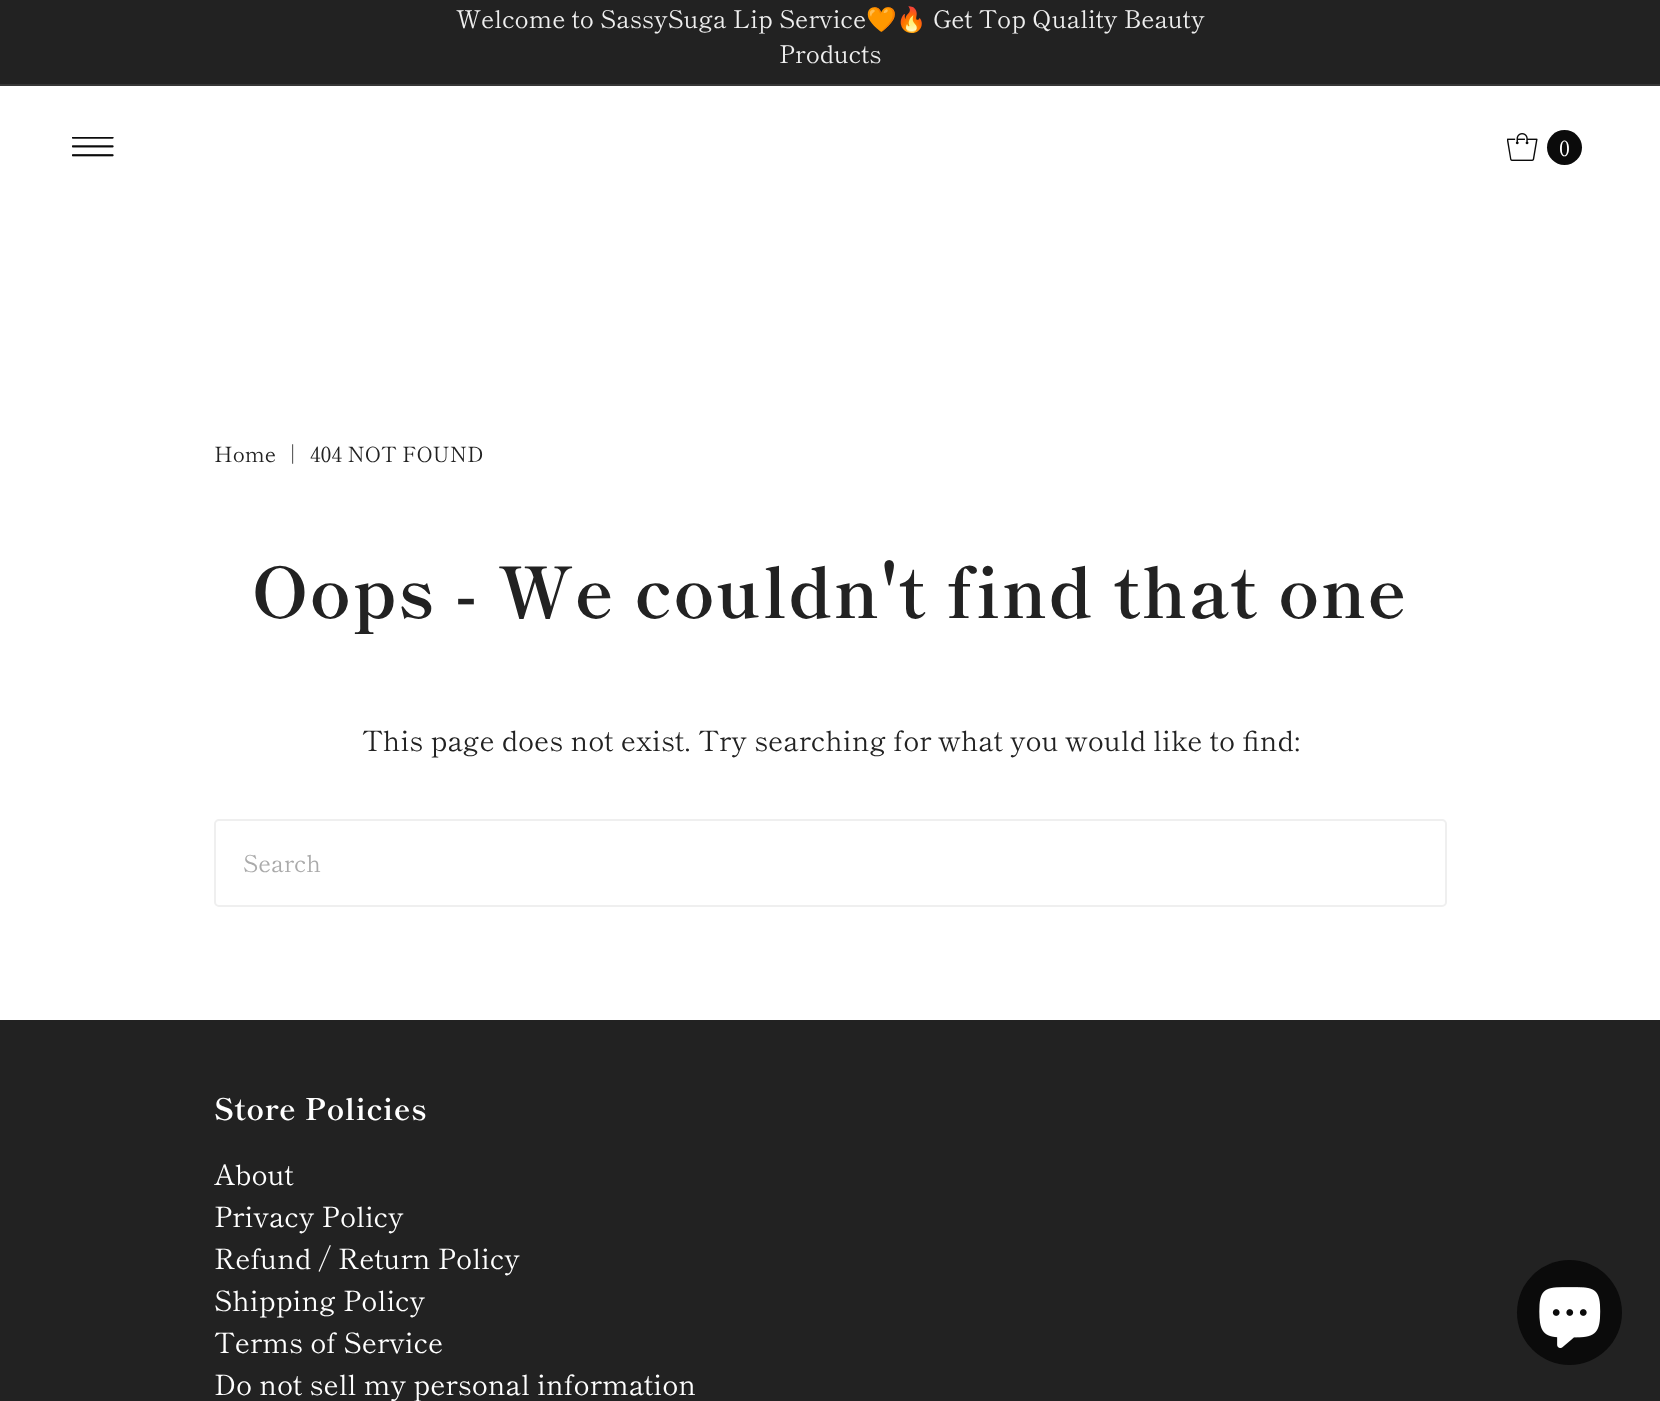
<?xml version="1.0" encoding="UTF-8"?>
<svg xmlns="http://www.w3.org/2000/svg" xmlns:xlink="http://www.w3.org/1999/xlink" width="1660" height="1401">
  <rect width="100%" height="100%" fill="#ffffff" />
  <rect width="1660" height="84" fill="#222222" />
  <rect y="84" width="1660" height="2" fill="#373737" />
  <image x="72" y="137" width="42" height="20" xlink:href="image1.png" />
  <image x="1507" y="133" width="31" height="28" xlink:href="image2.png" />
  <circle cx="1564.5" cy="147.5" r="17.5" fill="#0b0b0b" />
  <rect x="215" y="820" width="1231" height="86" rx="4" fill="none" stroke="#efefef" stroke-width="2" />
  <rect y="1020" width="1660" height="381" fill="#222222" />
  <circle cx="1569.5" cy="1312.5" r="52.5" fill="#0b0b0b" />
  <image x="1539" y="1287" width="62" height="61" xlink:href="image3.png" />
  <text x="456" y="28" style="font-family: Shippori Mincho; font-size: 24.5px; fill: #efefef">Welcome to SassySuga Lip Service</text>
  <text x="866" y="28" style="font-family: Noto Color Emoji; font-size: 24.5px; fill: #efefef">🧡🔥</text>
  <text x="933" y="28" style="font-family: Shippori Mincho; font-size: 24.5px; fill: #efefef">Get Top Quality Beauty</text>
  <text x="779" y="63" style="font-family: Shippori Mincho; font-size: 24.5px; fill: #efefef">Products</text>
  <text x="1559" y="156" style="font-family: Shippori Mincho; font-size: 21px; fill: #ffffff">0</text>
  <text x="214" y="462" style="font-family: Shippori Mincho; font-size: 21px; fill: #222222">Home</text>
  <text x="290" y="462" style="font-family: Shippori Mincho; font-size: 21px; fill: #222222">|</text>
  <text x="310" y="462" style="font-family: Shippori Mincho; font-size: 21px; fill: #222222">404 NOT FOUND</text>
  <text x="252" y="618" style="font-family: Shippori Mincho; font-size: 70px; font-weight: bold; letter-spacing: 1.75px; fill: #222222">Oops - We couldn't find that one</text>
  <text x="362" y="751" style="font-family: Shippori Mincho; font-size: 28px; fill: #222222">This page does not exist. Try searching for what you would like to find:</text>
  <text x="243" y="872" style="font-family: Shippori Mincho; font-size: 23.5px; fill: #aaaaaa">Search</text>
  <text x="214" y="1120" style="font-family: Shippori Mincho; font-size: 29.75px; font-weight: bold; letter-spacing: 0.75px; fill: #ffffff">Store Policies</text>
  <text x="214" y="1185" style="font-family: Shippori Mincho; font-size: 28px; fill: #ffffff">About</text>
  <text x="214" y="1227" style="font-family: Shippori Mincho; font-size: 28px; fill: #ffffff">Privacy Policy</text>
  <text x="214" y="1269" style="font-family: Shippori Mincho; font-size: 28px; fill: #ffffff">Refund / Return Policy</text>
  <text x="214" y="1311" style="font-family: Shippori Mincho; font-size: 28px; fill: #ffffff">Shipping Policy</text>
  <text x="214" y="1353" style="font-family: Shippori Mincho; font-size: 28px; fill: #ffffff">Terms of Service</text>
  <text x="214" y="1395" style="font-family: Shippori Mincho; font-size: 28px; fill: #ffffff">Do not sell my personal information</text>
</svg>
